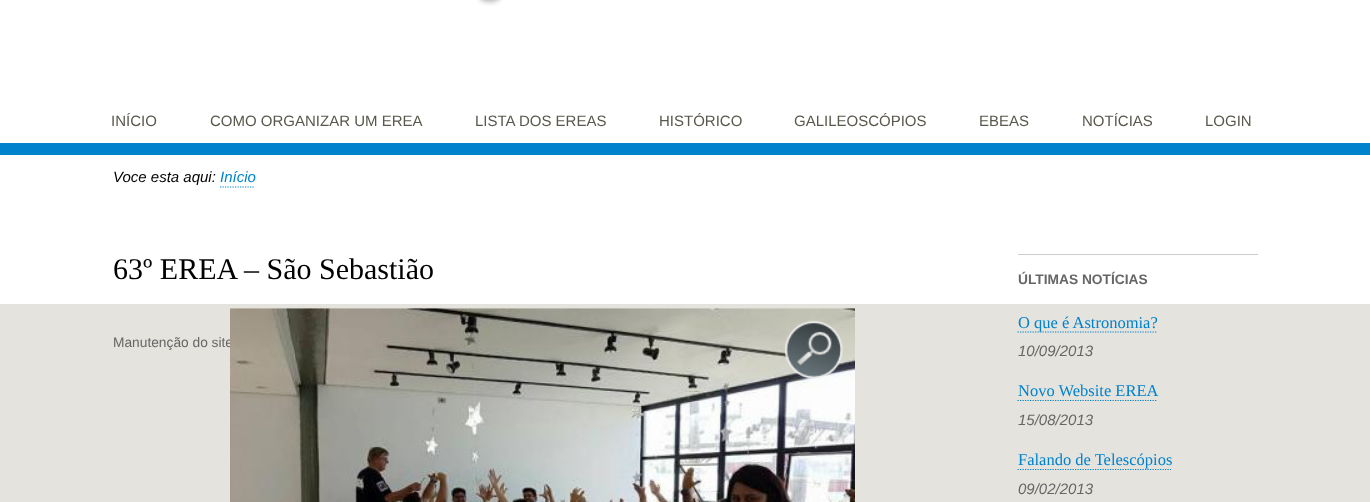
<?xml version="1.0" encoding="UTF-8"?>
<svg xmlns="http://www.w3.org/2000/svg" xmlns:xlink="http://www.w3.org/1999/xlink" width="1370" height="502">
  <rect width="100%" height="100%" fill="#e4e3dd" />
  <rect width="1370" height="304" fill="#ffffff" />
  <image x="477" y="0" width="26" height="6" xlink:href="image1.png" />
  <rect y="143" width="1370" height="12" fill="#0082cc" />
  <path d="M 220 187 h 35" fill="none" stroke="#0082cc" stroke-width="1.2" stroke-dasharray="1.25 1.25" />
  <rect x="1018" y="254" width="240" height="1" fill="#cccccc" />
  <path d="M 1017.5 332 h 140" fill="none" stroke="#0082cc" stroke-width="1.2" stroke-dasharray="1.25 1.25" />
  <path d="M 1017.5 400.5 h 140" fill="none" stroke="#0082cc" stroke-width="1.2" stroke-dasharray="1.25 1.25" />
  <path d="M 1017.5 469.5 h 153.5" fill="none" stroke="#0082cc" stroke-width="1.2" stroke-dasharray="1.25 1.25" />
  <text x="111" y="126" style="font-family: Liberation Sans; font-size: 15px; fill: #5a584d">INÍCIO</text>
  <text x="210" y="126" style="font-family: Liberation Sans; font-size: 15px; fill: #5a584d">COMO ORGANIZAR UM EREA</text>
  <text x="475" y="126" style="font-family: Liberation Sans; font-size: 15px; fill: #5a584d">LISTA DOS EREAS</text>
  <text x="659" y="126" style="font-family: Liberation Sans; font-size: 15px; fill: #5a584d">HISTÓRICO</text>
  <text x="794" y="126" style="font-family: Liberation Sans; font-size: 15px; fill: #5a584d">GALILEOSCÓPIOS</text>
  <text x="979" y="126" style="font-family: Liberation Sans; font-size: 15px; fill: #5a584d">EBEAS</text>
  <text x="1082" y="126" style="font-family: Liberation Sans; font-size: 15px; fill: #5a584d">NOTÍCIAS</text>
  <text x="1205" y="126" style="font-family: Liberation Sans; font-size: 15px; fill: #5a584d">LOGIN</text>
  <text x="113" y="182" style="font-family: Liberation Sans; font-size: 15px; font-style: italic; fill: #000000">Voce esta aqui:</text>
  <text x="220" y="182" style="font-family: Liberation Sans; font-size: 15px; font-style: italic; fill: #0082cc">Início</text>
  <text x="113" y="279" style="font-family: Liberation Serif; font-size: 30px; fill: #000000">63º EREA – São Sebastião</text>
  <text x="1018" y="284" style="font-family: Liberation Sans; font-size: 13.75px; font-weight: bold; fill: #666666">ÚLTIMAS NOTÍCIAS</text>
  <text x="1018" y="328" style="font-family: Liberation Serif; font-size: 16.5px; fill: #0082cc">O que é Astronomia?</text>
  <text x="1018" y="356" style="font-family: Liberation Sans; font-size: 15px; font-style: italic; fill: #666666">10/09/2013</text>
  <text x="1018" y="396" style="font-family: Liberation Serif; font-size: 16.5px; fill: #0082cc">Novo Website EREA</text>
  <text x="1018" y="425" style="font-family: Liberation Sans; font-size: 15px; font-style: italic; fill: #666666">15/08/2013</text>
  <text x="1018" y="465" style="font-family: Liberation Serif; font-size: 16.5px; fill: #0082cc">Falando de Telescópios</text>
  <text x="1018" y="494" style="font-family: Liberation Sans; font-size: 15px; font-style: italic; fill: #666666">09/02/2013</text>
  <text x="113" y="347" style="font-family: Liberation Sans; font-size: 13.75px; fill: #666666">Manutenção do site</text>
  <image x="230" y="308" width="625" height="194" xlink:href="image2.png" />
  <image x="785" y="320" width="58" height="59" xlink:href="image3.png" />
</svg>
